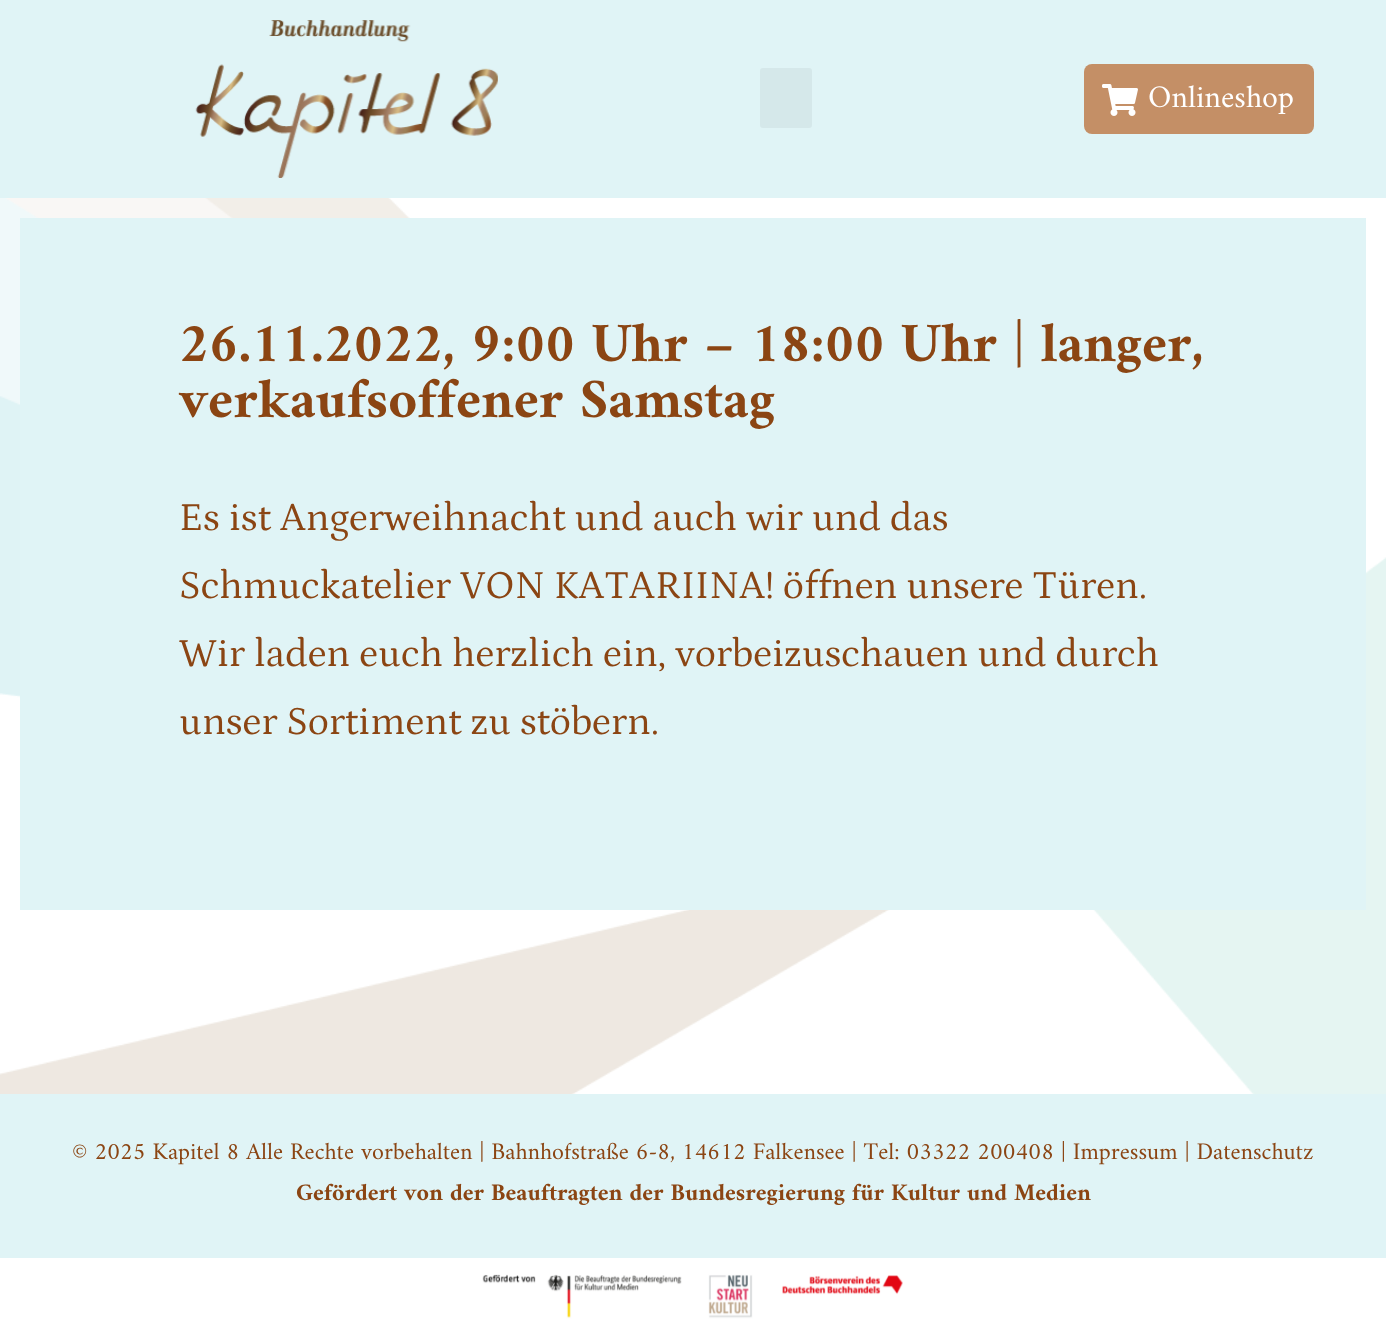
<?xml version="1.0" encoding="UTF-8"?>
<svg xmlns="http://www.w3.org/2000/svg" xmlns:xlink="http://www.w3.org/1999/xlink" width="1386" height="1325">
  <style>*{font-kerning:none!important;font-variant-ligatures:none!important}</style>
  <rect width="100%" height="100%" fill="#ffffff" />
  <image x="0" y="198" width="1386" height="896" xlink:href="image1.png" />
  <rect width="1386" height="198" fill="#e0f4f6" />
  <image x="195" y="20" width="303" height="158" xlink:href="image2.png" />
  <rect x="760" y="68" width="52" height="60" rx="3" fill="#d5e8ea" />
  <rect x="1084" y="64" width="230" height="70" rx="8" fill="#c48f66" />
  <image x="1102" y="84" width="36" height="32" xlink:href="image3.png" />
  <rect x="20" y="218" width="1346" height="692" fill="#e0f4f6" />
  <rect y="1094" width="1386" height="164" fill="#e0f4f6" />
  <image x="482" y="1274" width="421" height="45" xlink:href="image4.png" />
  <text x="1148" y="107" style="font-family: Amiri; font-size: 32px; fill: #ffffff">Onlineshop</text>
  <text x="179" y="361" style="font-family: Amiri; font-size: 56px; font-weight: bold; fill: #8b4513">26.11.2022, 9:00 Uhr – 18:00 Uhr | langer,</text>
  <text x="179" y="417" style="font-family: Amiri; font-size: 56px; font-weight: bold; fill: #8b4513">verkaufsoffener Samstag</text>
  <text x="179" y="530" style="font-family: Petrona; font-size: 40px; fill: #8b4513">Es ist Angerweihnacht und auch wir und das</text>
  <text x="179" y="598" style="font-family: Petrona; font-size: 40px; fill: #8b4513">Schmuckatelier VON KATARIINA!</text>
  <text x="783" y="598" style="font-family: Petrona; font-size: 40px; fill: #8b4513">öffnen unsere Türen.</text>
  <text x="179" y="666" style="font-family: Petrona; font-size: 40px; fill: #8b4513">Wir laden euch herzlich ein, vorbeizuschauen und durch</text>
  <text x="179" y="734" style="font-family: Petrona; font-size: 40px; fill: #8b4513">unser Sortiment zu stöbern.</text>
  <text x="72" y="1159" style="font-family: Amiri; font-size: 24px; fill: #8b4513">© 2025 Kapitel 8 Alle Rechte vorbehalten | Bahnhofstraße 6-8, 14612 Falkensee | Tel: 03322 200408 | Impressum | Datenschutz</text>
  <text x="296" y="1200" style="font-family: Amiri; font-size: 24px; font-weight: bold; fill: #8b4513">Gefördert von der Beauftragten der Bundesregierung für Kultur und Medien</text>
</svg>
